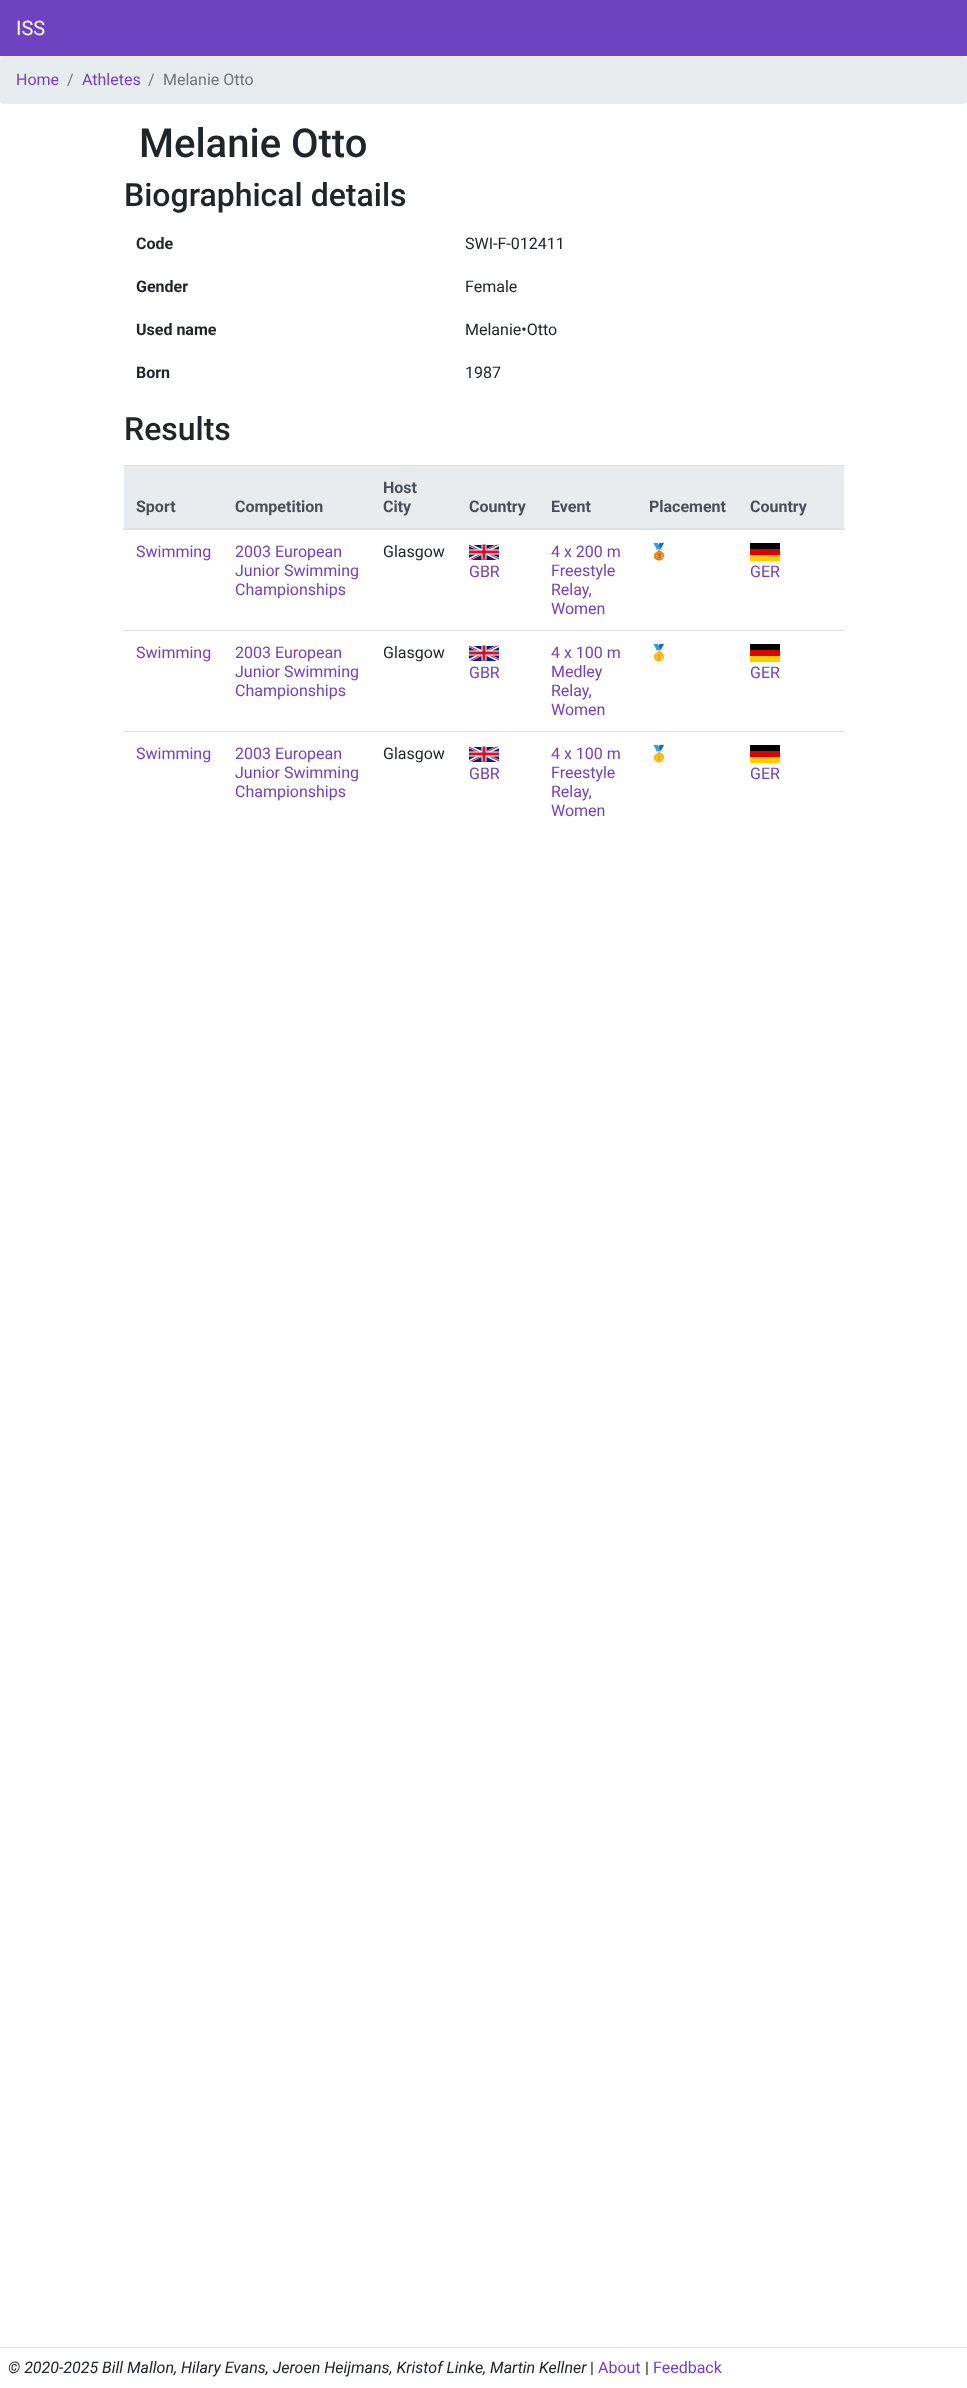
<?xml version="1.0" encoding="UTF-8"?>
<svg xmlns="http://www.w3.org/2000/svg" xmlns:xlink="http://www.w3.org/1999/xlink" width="967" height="2388">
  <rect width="100%" height="100%" fill="#ffffff" />
  <rect width="967" height="56" fill="#6f42c1" />
  <rect y="56" width="967" height="48" rx="4" fill="#e9ecef" />
  <rect x="123" y="465" width="721" height="1" fill="#dee2e6" />
  <rect x="123" y="528" width="722" height="2" fill="#dee2e6" />
  <rect x="124" y="466" width="720" height="62" fill="#e9ecef" />
  <image x="469" y="544" width="30" height="16" xlink:href="image1.png" />
  <rect x="750" y="543" width="30" height="6" fill="#000000" />
  <rect x="750" y="549" width="30" height="6" fill="#dd0000" />
  <rect x="750" y="555" width="30" height="6" fill="#ffce00" />
  <rect x="123" y="630" width="721" height="1" fill="#dee2e6" />
  <image x="469" y="645" width="30" height="16" xlink:href="image1.png" />
  <rect x="750" y="644" width="30" height="6" fill="#000000" />
  <rect x="750" y="650" width="30" height="6" fill="#dd0000" />
  <rect x="750" y="656" width="30" height="6" fill="#ffce00" />
  <rect x="123" y="731" width="721" height="1" fill="#dee2e6" />
  <image x="469" y="746" width="30" height="16" xlink:href="image1.png" />
  <rect x="750" y="745" width="30" height="6" fill="#000000" />
  <rect x="750" y="751" width="30" height="6" fill="#dd0000" />
  <rect x="750" y="757" width="30" height="6" fill="#ffce00" />
  <rect y="2347" width="967" height="1" fill="#dee2e6" />
  <text x="16" y="35" style="font-family: Roboto; font-size: 20px; fill: #ffffff">ISS</text>
  <text x="16" y="85" style="font-family: Roboto; font-size: 16px; fill: #6f42c1">Home</text>
  <text x="67" y="85" style="font-family: Roboto; font-size: 16px; fill: #6c757d">/</text>
  <text x="82" y="85" style="font-family: Roboto; font-size: 16px; fill: #6f42c1">Athletes</text>
  <text x="148" y="85" style="font-family: Roboto; font-size: 16px; fill: #6c757d">/</text>
  <text x="163" y="85" style="font-family: Roboto; font-size: 16px; fill: #6c757d">Melanie Otto</text>
  <text x="139" y="157" style="font-family: Roboto; font-size: 40px; font-weight: 500; fill: #212529">Melanie Otto</text>
  <text x="124" y="206" style="font-family: Roboto; font-size: 32px; font-weight: 500; fill: #212529">Biographical details</text>
  <text x="136" y="249" style="font-family: Roboto; font-size: 16px; font-weight: bold; fill: #212529">Code</text>
  <text x="465" y="249" style="font-family: Roboto; font-size: 16px; fill: #212529">SWI-F-012411</text>
  <text x="136" y="292" style="font-family: Roboto; font-size: 16px; font-weight: bold; fill: #212529">Gender</text>
  <text x="465" y="292" style="font-family: Roboto; font-size: 16px; fill: #212529">Female</text>
  <text x="136" y="335" style="font-family: Roboto; font-size: 16px; font-weight: bold; fill: #212529">Used name</text>
  <text x="465" y="335" style="font-family: Roboto; font-size: 16px; fill: #212529">Melanie•Otto</text>
  <text x="136" y="378" style="font-family: Roboto; font-size: 16px; font-weight: bold; fill: #212529">Born</text>
  <text x="465" y="378" style="font-family: Roboto; font-size: 16px; fill: #212529">1987</text>
  <text x="124" y="440" style="font-family: Roboto; font-size: 32px; font-weight: 500; fill: #212529">Results</text>
  <text x="136" y="512" style="font-family: Roboto; font-size: 16px; font-weight: bold; fill: #495057">Sport</text>
  <text x="235" y="512" style="font-family: Roboto; font-size: 16px; font-weight: bold; fill: #495057">Competition</text>
  <text x="383" y="493" style="font-family: Roboto; font-size: 16px; font-weight: bold; fill: #495057">Host</text>
  <text x="383" y="512" style="font-family: Roboto; font-size: 16px; font-weight: bold; fill: #495057">City</text>
  <text x="469" y="512" style="font-family: Roboto; font-size: 16px; font-weight: bold; fill: #495057">Country</text>
  <text x="551" y="512" style="font-family: Roboto; font-size: 16px; font-weight: bold; fill: #495057">Event</text>
  <text x="649" y="512" style="font-family: Roboto; font-size: 16px; font-weight: bold; fill: #495057">Placement</text>
  <text x="750" y="512" style="font-family: Roboto; font-size: 16px; font-weight: bold; fill: #495057">Country</text>
  <text x="136" y="557" style="font-family: Roboto; font-size: 16px; fill: #6f42c1">Swimming</text>
  <text x="235" y="557" style="font-family: Roboto; font-size: 16px; fill: #6f42c1">2003 European</text>
  <text x="235" y="576" style="font-family: Roboto; font-size: 16px; fill: #6f42c1">Junior Swimming</text>
  <text x="235" y="595" style="font-family: Roboto; font-size: 16px; fill: #6f42c1">Championships</text>
  <text x="383" y="557" style="font-family: Roboto; font-size: 16px; fill: #212529">Glasgow</text>
  <text x="469" y="577" style="font-family: Roboto; font-size: 16px; fill: #6f42c1">GBR</text>
  <text x="551" y="557" style="font-family: Roboto; font-size: 16px; fill: #6f42c1">4 x 200 m</text>
  <text x="551" y="576" style="font-family: Roboto; font-size: 16px; fill: #6f42c1">Freestyle</text>
  <text x="551" y="595" style="font-family: Roboto; font-size: 16px; fill: #6f42c1">Relay,</text>
  <text x="551" y="614" style="font-family: Roboto; font-size: 16px; fill: #6f42c1">Women</text>
  <text x="649" y="557" style="font-family: Noto Color Emoji; font-size: 16px; fill: #212529">🥉</text>
  <text x="750" y="577" style="font-family: Roboto; font-size: 16px; fill: #6f42c1">GER</text>
  <text x="136" y="658" style="font-family: Roboto; font-size: 16px; fill: #6f42c1">Swimming</text>
  <text x="235" y="658" style="font-family: Roboto; font-size: 16px; fill: #6f42c1">2003 European</text>
  <text x="235" y="677" style="font-family: Roboto; font-size: 16px; fill: #6f42c1">Junior Swimming</text>
  <text x="235" y="696" style="font-family: Roboto; font-size: 16px; fill: #6f42c1">Championships</text>
  <text x="383" y="658" style="font-family: Roboto; font-size: 16px; fill: #212529">Glasgow</text>
  <text x="469" y="678" style="font-family: Roboto; font-size: 16px; fill: #6f42c1">GBR</text>
  <text x="551" y="658" style="font-family: Roboto; font-size: 16px; fill: #6f42c1">4 x 100 m</text>
  <text x="551" y="677" style="font-family: Roboto; font-size: 16px; fill: #6f42c1">Medley</text>
  <text x="551" y="696" style="font-family: Roboto; font-size: 16px; fill: #6f42c1">Relay,</text>
  <text x="551" y="715" style="font-family: Roboto; font-size: 16px; fill: #6f42c1">Women</text>
  <text x="649" y="658" style="font-family: Noto Color Emoji; font-size: 16px; fill: #212529">🥇</text>
  <text x="750" y="678" style="font-family: Roboto; font-size: 16px; fill: #6f42c1">GER</text>
  <text x="136" y="759" style="font-family: Roboto; font-size: 16px; fill: #6f42c1">Swimming</text>
  <text x="235" y="759" style="font-family: Roboto; font-size: 16px; fill: #6f42c1">2003 European</text>
  <text x="235" y="778" style="font-family: Roboto; font-size: 16px; fill: #6f42c1">Junior Swimming</text>
  <text x="235" y="797" style="font-family: Roboto; font-size: 16px; fill: #6f42c1">Championships</text>
  <text x="383" y="759" style="font-family: Roboto; font-size: 16px; fill: #212529">Glasgow</text>
  <text x="469" y="779" style="font-family: Roboto; font-size: 16px; fill: #6f42c1">GBR</text>
  <text x="551" y="759" style="font-family: Roboto; font-size: 16px; fill: #6f42c1">4 x 100 m</text>
  <text x="551" y="778" style="font-family: Roboto; font-size: 16px; fill: #6f42c1">Freestyle</text>
  <text x="551" y="797" style="font-family: Roboto; font-size: 16px; fill: #6f42c1">Relay,</text>
  <text x="551" y="816" style="font-family: Roboto; font-size: 16px; fill: #6f42c1">Women</text>
  <text x="649" y="759" style="font-family: Noto Color Emoji; font-size: 16px; fill: #212529">🥇</text>
  <text x="750" y="779" style="font-family: Roboto; font-size: 16px; fill: #6f42c1">GER</text>
  <text x="8" y="2373" style="font-family: Roboto; font-size: 16px; font-style: italic; fill: #212529">© 2020-2025 Bill Mallon, Hilary Evans, Jeroen Heijmans, Kristof Linke, Martin Kellner</text>
  <text x="590" y="2373" style="font-family: Roboto; font-size: 16px; fill: #212529">|</text>
  <text x="598" y="2373" style="font-family: Roboto; font-size: 16px; fill: #6f42c1">About</text>
  <text x="645" y="2373" style="font-family: Roboto; font-size: 16px; fill: #212529">|</text>
  <text x="653" y="2373" style="font-family: Roboto; font-size: 16px; fill: #6f42c1">Feedback</text>
</svg>
